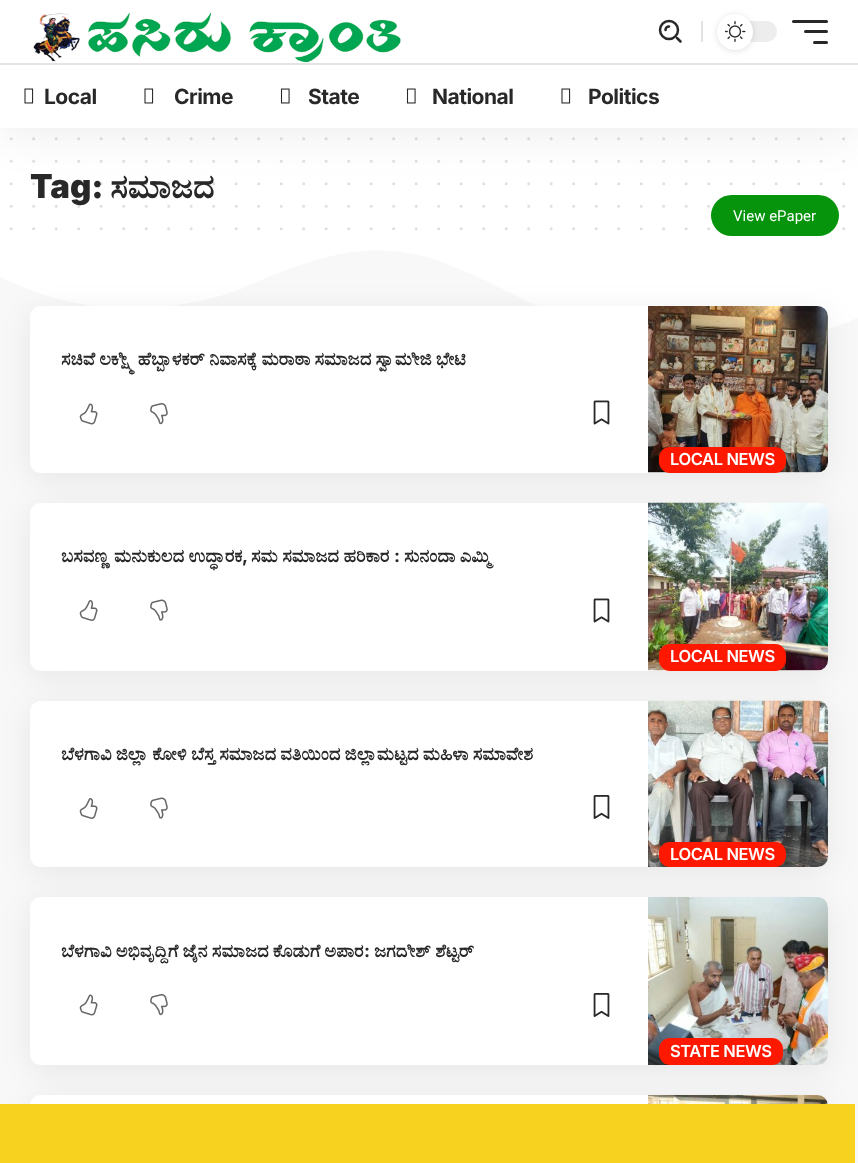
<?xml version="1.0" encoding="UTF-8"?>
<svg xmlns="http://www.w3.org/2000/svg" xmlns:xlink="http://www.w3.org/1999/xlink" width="858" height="1163">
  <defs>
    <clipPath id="clip1"><rect y="245" width="858" height="105" /></clipPath>
  </defs>
  <rect width="100%" height="100%" fill="#ffffff" />
  <path d="M 11.2 138.8 h 832.9" fill="none" stroke="#dfdfdf" stroke-width="3" stroke-linecap="round" stroke-dasharray="0 22.5" />
  <path d="M 11.2 161.2 h 832.9" fill="none" stroke="#dfdfdf" stroke-width="3" stroke-linecap="round" stroke-dasharray="0 22.5" />
  <path d="M 11.2 228.8 h 832.9" fill="none" stroke="#dfdfdf" stroke-width="3" stroke-linecap="round" stroke-dasharray="0 22.5" />
  <rect y="250" width="858" height="913" fill="#f8f8f8" />
  <g clip-path="url(#clip1)">
    <path d="M 362 251 c 19 -2 44 1 65 6 c 20 5 61 25 86 37 c 65 34 115 47 166 53 c 20 2 42 3 89 -3 c 47 -6 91 -27 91 -27 v -73 h -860 v 32 c 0 0 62 35 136 32 c 34 0 80 -7 115 -23 c 19 -9 45 -19 69 -26 c 23 -6 34 -7 43 -8 z" fill="#ffffff" />
  </g>
  <rect x="30" y="312" width="798" height="167" rx="11" fill="#000000" fill-opacity="0.07" filter="blur(15px)" />
  <rect x="30" y="306" width="798" height="167" rx="11" fill="#ffffff" />
  <image x="79" y="403" width="19" height="22" xlink:href="image5.png" />
  <image x="150" y="403" width="18" height="22" xlink:href="image6.png" />
  <image x="593" y="400" width="17" height="25" xlink:href="image7.png" />
  <rect x="30" y="509" width="798" height="168" rx="11" fill="#000000" fill-opacity="0.07" filter="blur(15px)" />
  <image x="648" y="306" width="180" height="167" xlink:href="image8.png" />
  <rect x="659" y="447" width="127" height="26" rx="11" fill="#ff1800" />
  <rect x="30" y="503" width="798" height="168" rx="11" fill="#ffffff" />
  <image x="79" y="600" width="19" height="21" xlink:href="image9.png" />
  <image x="150" y="599" width="18" height="22" xlink:href="image10.png" />
  <image x="593" y="598" width="17" height="25" xlink:href="image7.png" />
  <rect x="30" y="707" width="798" height="166" rx="11" fill="#000000" fill-opacity="0.07" filter="blur(15px)" />
  <image x="648" y="502" width="180" height="169" xlink:href="image11.png" />
  <rect x="659" y="644" width="127" height="27" rx="11" fill="#ff1800" />
  <rect x="30" y="701" width="798" height="166" rx="11" fill="#ffffff" />
  <image x="79" y="798" width="19" height="21" xlink:href="image9.png" />
  <image x="150" y="797" width="18" height="22" xlink:href="image10.png" />
  <image x="593" y="795" width="17" height="24" xlink:href="image12.png" />
  <rect x="30" y="903" width="798" height="168" rx="11" fill="#000000" fill-opacity="0.07" filter="blur(15px)" />
  <image x="648" y="700" width="180" height="167" xlink:href="image13.png" />
  <rect x="659" y="842" width="127" height="25" rx="11" fill="#ff1800" />
  <rect x="30" y="897" width="798" height="168" rx="11" fill="#ffffff" />
  <image x="79" y="994" width="19" height="22" xlink:href="image5.png" />
  <image x="150" y="994" width="18" height="22" xlink:href="image6.png" />
  <image x="593" y="993" width="17" height="24" xlink:href="image12.png" />
  <rect x="30" y="1101" width="798" height="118" rx="11" fill="#000000" fill-opacity="0.07" filter="blur(15px)" />
  <image x="648" y="897" width="180" height="168" xlink:href="image14.png" />
  <rect x="659" y="1038" width="124" height="27" rx="11" fill="#ff1800" />
  <rect x="30" y="1095" width="798" height="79" rx="11" fill="#ffffff" />
  <image x="648" y="1095" width="180" height="9" xlink:href="image15.png" />
  <rect y="1104" width="855" height="59" fill="#f7d320" />
  <text x="30" y="198" style="font-family: Inter; font-size: 33px; font-weight: 900; fill: #282828">Tag:</text>
  <path d="M 11.2 206.2 h 832.9" fill="none" stroke="#282828" stroke-opacity="0.15" stroke-width="3" stroke-linecap="round" stroke-dasharray="0 22.5" />
  <text x="110" y="198" style="font-family: FreeSerif; font-size: 33px; font-weight: bold; fill: #282828">ಸಮಾಜದ</text>
  <path d="M 11.2 183.8 h 832.9" fill="none" stroke="#282828" stroke-opacity="0.15" stroke-width="3" stroke-linecap="round" stroke-dasharray="0 22.5" />
  <rect x="711" y="195" width="128" height="41" rx="20.5" fill="#05940b" />
  <rect y="6" width="858" height="128" fill="#000000" fill-opacity="0.07" filter="blur(22.5px)" />
  <rect width="858" height="128" fill="#ffffff" />
  <text x="588" y="104" style="font-family: Inter; font-size: 21px; font-weight: bold; letter-spacing: -0.5px; fill: #282828">Politics</text>
  <image x="561" y="88" width="10" height="16" xlink:href="image3.png" />
  <text x="432" y="104" style="font-family: Inter; font-size: 21px; font-weight: bold; letter-spacing: -0.5px; fill: #282828">National</text>
  <image x="406" y="88" width="10" height="16" xlink:href="image4.png" />
  <text x="308" y="104" style="font-family: Inter; font-size: 21px; font-weight: bold; letter-spacing: -0.5px; fill: #282828">State</text>
  <image x="280" y="88" width="10" height="16" xlink:href="image4.png" />
  <text x="174" y="104" style="font-family: Inter; font-size: 21px; font-weight: bold; letter-spacing: -0.5px; fill: #282828">Crime</text>
  <image x="144" y="88" width="10" height="16" xlink:href="image3.png" />
  <text x="44" y="104" style="font-family: Inter; font-size: 21px; font-weight: bold; letter-spacing: -0.5px; fill: #282828">Local</text>
  <image x="24" y="88" width="10" height="16" xlink:href="image3.png" />
  <rect y="63" width="858" height="2" fill="#e4e4e4" />
  <rect x="813" y="41" width="15" height="3" rx="1.5" fill="#282828" />
  <rect x="804" y="30" width="24" height="3" rx="1.5" fill="#282828" />
  <rect x="792" y="20" width="36" height="3" rx="1.5" fill="#282828" />
  <rect x="717" y="21" width="60" height="21" rx="10.5" fill="#ededed" />
  <rect x="717" y="15" width="36" height="36" rx="18" fill="#000000" fill-opacity="0.12" filter="blur(3px)" />
  <circle cx="735" cy="32" r="18" fill="#ffffff" />
  <image x="725" y="21" width="21" height="21" xlink:href="image2.png" />
  <rect x="701" y="21" width="2" height="21" fill="#e4e4e4" />
  <circle cx="669" cy="30" r="9" fill="none" stroke="#282828" stroke-width="2.5" />
  <path d="M 669 26.5 c -2 0 -3.5 1.5 -3.5 3.5 m 15 11.5 l -3.5 -3.5" fill="none" stroke="#282828" stroke-width="2.5" stroke-linecap="round" />
  <image x="33" y="12" width="368" height="51" xlink:href="image1.png" />
  <text x="733" y="221" style="font-family: Roboto; font-size: 15px; fill: #ffffff">View ePaper</text>
  <text x="61" y="365" word-spacing="-0.25" style="font-family: FreeSerif; font-size: 18px; font-weight: bold; fill: #282828">ಸಚಿವೆ ಲಕ್ಷ್ಮೀ ಹೆಬ್ಬಾಳಕರ್ ನಿವಾಸಕ್ಕೆ ಮರಾಠಾ ಸಮಾಜದ ಸ್ವಾಮೀಜಿ ಭೇಟಿ</text>
  <text x="670" y="465" style="font-family: Inter; font-size: 16.5px; font-weight: 600; letter-spacing: -0.4px; fill: #ffffff">LOCAL NEWS</text>
  <text x="61" y="562" style="font-family: FreeSerif; font-size: 18px; font-weight: bold; fill: #282828">ಬಸವಣ್ಣ ಮನುಕುಲದ ಉದ್ಧಾರಕ</text>
  <text x="242" y="562" style="font-family: Inter; font-size: 18px; font-weight: bold; fill: #282828">,</text>
  <text x="251" y="562" style="font-family: FreeSerif; font-size: 18px; font-weight: bold; fill: #282828">ಸಮ ಸಮಾಜದ ಹರಿಕಾರ</text>
  <text x="394" y="562" style="font-family: Inter; font-size: 18px; font-weight: bold; fill: #282828">:</text>
  <text x="404" y="562" style="font-family: FreeSerif; font-size: 18px; font-weight: bold; fill: #282828">ಸುನಂದಾ ಎಮ್ಮಿ</text>
  <text x="670" y="662" style="font-family: Inter; font-size: 16.5px; font-weight: 600; letter-spacing: -0.4px; fill: #ffffff">LOCAL NEWS</text>
  <text x="61" y="760" word-spacing="-0.25" style="font-family: FreeSerif; font-size: 18px; font-weight: bold; fill: #282828">ಬೆಳಗಾವಿ ಜಿಲ್ಲಾ ಕೋಳಿ ಬೆಸ್ತ ಸಮಾಜದ ವತಿಯಿಂದ ಜಿಲ್ಲಾಮಟ್ಟದ ಮಹಿಳಾ ಸಮಾವೇಶ</text>
  <text x="670" y="860" style="font-family: Inter; font-size: 16.5px; font-weight: 600; letter-spacing: -0.4px; fill: #ffffff">LOCAL NEWS</text>
  <text x="61" y="957" word-spacing="-0.25" style="font-family: FreeSerif; font-size: 18px; font-weight: bold; fill: #282828">ಬೆಳಗಾವಿ ಅಭಿವೃದ್ದಿಗೆ ಜೈನ ಸಮಾಜದ ಕೊಡುಗೆ ಅಪಾರ</text>
  <text x="364" y="957" style="font-family: Inter; font-size: 18px; font-weight: bold; fill: #282828">:</text>
  <text x="374" y="957" word-spacing="-0.25" style="font-family: FreeSerif; font-size: 18px; font-weight: bold; fill: #282828">ಜಗದೀಶ್ ಶೆಟ್ಟರ್</text>
  <text x="670" y="1057" style="font-family: Inter; font-size: 16.5px; font-weight: 600; letter-spacing: -0.4px; fill: #ffffff">STATE NEWS</text>
</svg>
